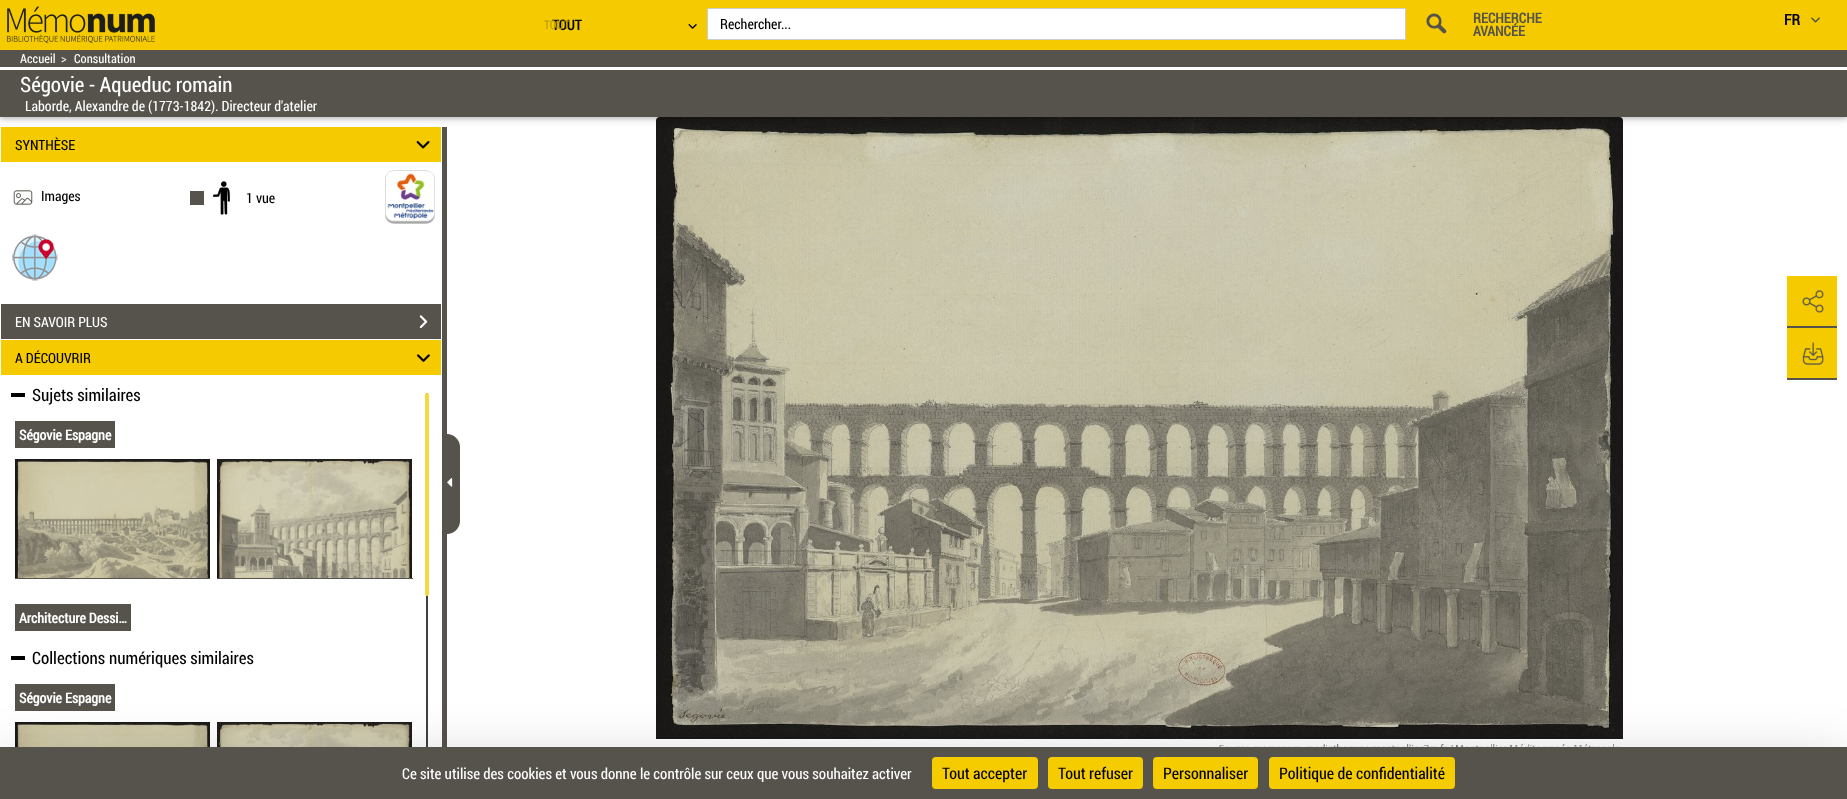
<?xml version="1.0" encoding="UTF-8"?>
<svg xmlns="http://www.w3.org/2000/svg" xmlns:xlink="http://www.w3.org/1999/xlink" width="1847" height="799">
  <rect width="100%" height="100%" fill="#ffffff" />
  <image x="656" y="117" width="967" height="630" xlink:href="image17.png" />
  <rect y="52" width="1847" height="67" fill="#000000" fill-opacity="0.12" filter="blur(5px)" />
  <rect y="52" width="1847" height="67" fill="#000000" fill-opacity="0.16" filter="blur(2px)" />
  <rect width="1847" height="50" fill="#f5cb00" />
  <image x="6" y="6" width="149" height="37" xlink:href="image1.png" />
  <image x="688" y="24" width="9" height="5" xlink:href="image2.png" />
  <path d="M 709 8.5 h 696.5 v 31 h -696.5 c -1 0 -1.5 -0.5 -1.5 -1.5 v -28 c 0 -1 0.5 -1.5 1.5 -1.5 z" fill="#ffffff" stroke="#cccccc" />
  <image x="1426" y="13" width="21" height="21" xlink:href="image3.png" />
  <image x="1811" y="17" width="9" height="6" xlink:href="image4.png" />
  <rect y="50" width="1847" height="67" fill="#56534c" />
  <rect y="67" width="1847" height="3" fill="#ffffff" />
  <rect x="442" y="127" width="5" height="620" fill="#56534c" />
  <rect x="1" y="127" width="440" height="35" fill="#f5cb00" />
  <image x="416" y="141" width="14" height="8" xlink:href="image5.png" />
  <image x="13" y="190" width="20" height="15" xlink:href="image6.png" />
  <rect x="190" y="191" width="14" height="14" fill="#56534c" />
  <image x="213" y="181" width="17" height="34" xlink:href="image7.png" />
  <image x="385" y="170" width="50" height="54" xlink:href="image8.png" />
  <image x="12" y="234" width="46" height="47" xlink:href="image9.png" />
  <rect x="1" y="304" width="440" height="35" fill="#56534c" />
  <image x="419" y="315" width="9" height="14" xlink:href="image10.png" />
  <rect x="1" y="340" width="440" height="35" fill="#f5cb00" />
  <image x="417" y="354" width="13" height="8" xlink:href="image11.png" />
  <rect x="11" y="393" width="14" height="4" fill="#000000" />
  <rect x="15" y="421" width="100" height="27" fill="#56534c" />
  <image x="15" y="459" width="195" height="119" xlink:href="image12.png" />
  <rect x="15" y="578" width="195" height="1" fill="#56534c" />
  <image x="217" y="459" width="195" height="119" xlink:href="image13.png" />
  <rect x="217" y="578" width="196" height="1" fill="#56534c" />
  <rect x="15" y="604" width="116" height="27" fill="#56534c" />
  <rect x="11" y="656" width="14" height="4" fill="#000000" />
  <rect x="15" y="684" width="100" height="27" fill="#56534c" />
  <image x="15" y="722" width="195" height="25" xlink:href="image14.png" />
  <image x="217" y="722" width="195" height="25" xlink:href="image15.png" />
  <rect x="426" y="393" width="2" height="390" rx="1" fill="#404040" />
  <rect x="425" y="393" width="4" height="203" rx="2" fill="#f8d840" />
  <path d="M 447.5 434.5 h -0.5 c 7 0 12.5 5.5 12.5 12.5 v 74 c 0 7 -5.5 12.5 -12.5 12.5 h 0.5 z" fill="#56534c" stroke="#56534c" />
  <image x="447" y="478" width="6" height="9" xlink:href="image16.png" />
  <rect x="1787" y="276" width="50" height="50" fill="#f5cb00" />
  <image x="1802" y="290" width="22" height="23" xlink:href="image18.png" />
  <rect x="1787" y="326" width="50" height="2" fill="#56534c" />
  <rect x="1787" y="328" width="50" height="50" fill="#f5cb00" />
  <image x="1802" y="342" width="22" height="23" xlink:href="image19.png" />
  <rect x="1787" y="378" width="50" height="2" fill="#56534c" />
  <rect y="767" width="1847" height="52" fill="#000000" fill-opacity="0.25" filter="blur(30px)" />
  <rect y="747" width="1847" height="52" fill="#56534c" />
  <rect x="932" y="757" width="106" height="32" rx="4" fill="#f5cc00" />
  <rect x="1048" y="757" width="95" height="32" rx="4" fill="#f5cc00" />
  <rect x="1153" y="757" width="105" height="32" rx="4" fill="#f5cc00" />
  <rect x="1269" y="757" width="186" height="32" rx="4" fill="#f5cc00" />
  <text x="552" y="30" style="font-family: Roboto Condensed; font-size: 14px; font-weight: bold; fill: #000000">TOUT</text>
  <text x="544" y="29" style="font-family: Roboto Condensed; font-size: 12px; fill: #bd9d00">TOUT</text>
  <text x="720" y="29" style="font-family: Roboto Condensed; font-size: 14px; fill: #000000">Rechercher...</text>
  <text x="1473" y="23" style="font-family: Roboto Condensed; font-size: 14px; font-weight: bold; fill: #56534c">RECHERCHE</text>
  <text x="1473" y="36" style="font-family: Roboto Condensed; font-size: 14px; font-weight: bold; fill: #56534c">AVANCÉE</text>
  <text x="1784" y="25" style="font-family: Roboto Condensed; font-size: 15px; font-weight: bold; fill: #000000">FR</text>
  <text x="20" y="63" style="font-family: Roboto Condensed; font-size: 12.5px; fill: #ffffff">Accueil</text>
  <text x="61" y="63" style="font-family: Roboto Condensed; font-size: 12.5px; fill: #ffffff">&gt;</text>
  <text x="74" y="63" style="font-family: Roboto Condensed; font-size: 12.5px; fill: #ffffff">Consultation</text>
  <text x="20" y="92" style="font-family: Roboto Condensed; font-size: 21px; fill: #ffffff">Ségovie - Aqueduc romain</text>
  <text x="25" y="111" style="font-family: Roboto Condensed; font-size: 14px; fill: #ffffff">Laborde, Alexandre de (1773-1842). Directeur d'atelier</text>
  <text x="15" y="150" style="font-family: Roboto Condensed; font-size: 14px; fill: #000000">SYNTHÈSE</text>
  <text x="41" y="201" style="font-family: Roboto Condensed; font-size: 14px; fill: #000000">Images</text>
  <text x="246" y="203" style="font-family: Roboto Condensed; font-size: 14px; fill: #000000">1 vue</text>
  <text x="15" y="327" style="font-family: Roboto Condensed; font-size: 14px; fill: #ffffff">EN SAVOIR PLUS</text>
  <text x="15" y="363" style="font-family: Roboto Condensed; font-size: 14px; fill: #000000">A DÉCOUVRIR</text>
  <text x="32" y="401" style="font-family: Roboto Condensed; font-size: 17px; fill: #000000">Sujets similaires</text>
  <text x="19" y="440" style="font-family: Roboto Condensed; font-size: 14px; font-weight: bold; fill: #ffffff">Ségovie Espagne</text>
  <text x="19" y="623" style="font-family: Roboto Condensed; font-size: 14px; font-weight: bold; fill: #ffffff">Architecture Dessi…</text>
  <text x="32" y="664" style="font-family: Roboto Condensed; font-size: 17px; fill: #000000">Collections numériques similaires</text>
  <text x="19" y="703" style="font-family: Roboto Condensed; font-size: 14px; font-weight: bold; fill: #ffffff">Ségovie Espagne</text>
  <text x="402" y="779" style="font-family: Roboto Condensed; font-size: 15px; fill: #ffffff">Ce site utilise des cookies et vous donne le contrôle sur ceux que vous souhaitez activer</text>
  <text x="942" y="779" style="font-family: Roboto Condensed; font-size: 16px; fill: #000000">Tout accepter</text>
  <text x="1058" y="779" style="font-family: Roboto Condensed; font-size: 16px; fill: #000000">Tout refuser</text>
  <text x="1163" y="779" style="font-family: Roboto Condensed; font-size: 16px; fill: #000000">Personnaliser</text>
  <text x="1279" y="779" style="font-family: Roboto Condensed; font-size: 16px; fill: #000000">Politique de confidentialité</text>
</svg>
